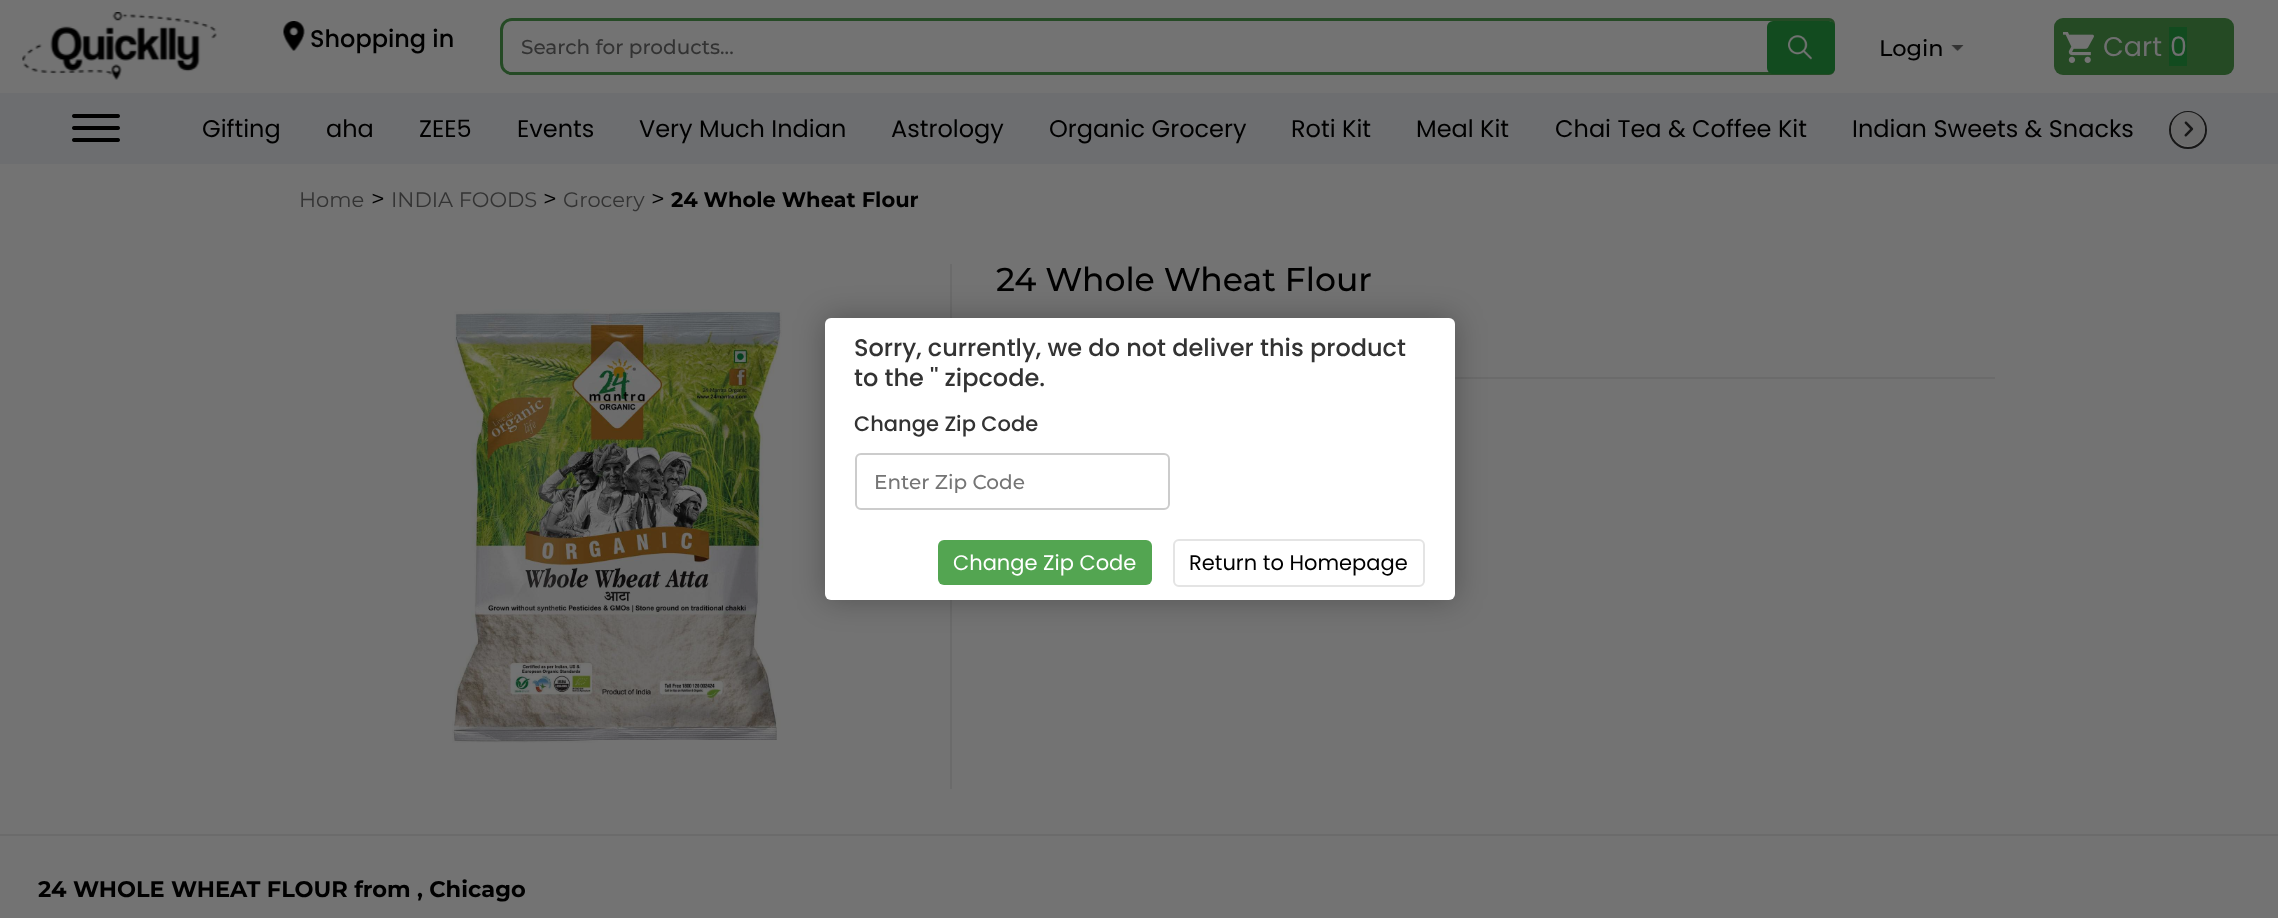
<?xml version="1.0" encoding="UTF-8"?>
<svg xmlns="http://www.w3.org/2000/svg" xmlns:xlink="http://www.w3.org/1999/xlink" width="2278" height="918">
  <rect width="100%" height="100%" fill="#737373" />
  <image x="22" y="12" width="195" height="68" xlink:href="image1.png" />
  <image x="283" y="21" width="22" height="30" xlink:href="image2.png" />
  <path d="M 512 19.5 h 1317 c 2.5 0 4.5 2 4.5 4.5 v 45 c 0 2.5 -2 4.5 -4.5 4.5 h -1317 c -6 0 -10.5 -4.5 -10.5 -10.5 v -33 c 0 -6 4.5 -10.5 10.5 -10.5 z" fill="none" stroke="#254a25" stroke-width="3" />
  <rect x="1767" y="21" width="68" height="53" rx="6" fill="#124b1f" />
  <image x="1788" y="35" width="24" height="25" xlink:href="image3.png" />
  <image x="1951" y="45" width="13" height="6" xlink:href="image4.png" />
  <rect x="2054" y="18" width="180" height="57" rx="9" fill="#254a24" />
  <image x="2063" y="32" width="31" height="31" xlink:href="image5.png" />
  <rect x="2169" y="27" width="18" height="39" fill="#124b1f" />
  <rect y="93" width="2278" height="71" fill="#6d6e70" />
  <image x="72" y="114" width="48" height="28" xlink:href="image6.png" />
  <circle cx="2188" cy="130" r="18" fill="#737373" stroke="#171717" stroke-width="2" />
  <image x="2171" y="112" width="34" height="34" xlink:href="image7.png" />
  <rect y="834" width="2278" height="2" fill="#6b6b6b" />
  <rect x="950" y="264" width="2" height="525" fill="#6b6b6b" />
  <image x="452" y="309" width="330" height="434" xlink:href="image8.png" />
  <rect x="1455" y="377" width="540" height="2" fill="#6b6b6b" />
  <rect x="825" y="318" width="630" height="282" rx="6" fill="#000000" fill-opacity="0.28" filter="blur(15px)" />
  <rect x="825" y="318" width="630" height="282" rx="6" fill="#ffffff" />
  <rect x="856" y="454" width="313" height="55" rx="5" fill="none" stroke="#cccccc" stroke-width="2" />
  <rect x="938" y="540" width="214" height="45" rx="6" fill="#53a551" />
  <rect x="1174" y="540" width="250" height="46" rx="5" fill="none" stroke="#e4e4e4" stroke-width="2" />
  <text x="310" y="47" style="font-family: Poppins; font-size: 24px; font-weight: 500; fill: #000000">Shopping in</text>
  <text x="521" y="54" style="font-family: Montserrat; font-size: 20px; font-weight: 500; fill: #333333">Search for products...</text>
  <text x="1879" y="56" style="font-family: Montserrat; font-size: 22.5px; font-weight: 500; fill: #000000">Login</text>
  <text x="2103" y="56" style="font-family: Poppins; font-size: 27px; fill: #6f6f70">Cart</text>
  <text x="2170" y="56" style="font-family: Poppins; font-size: 27px; fill: #6f6f70">0</text>
  <text x="202" y="137" style="font-family: Poppins; font-size: 24px; fill: #000000">Gifting</text>
  <text x="326" y="137" style="font-family: Poppins; font-size: 24px; fill: #000000">aha</text>
  <text x="419" y="137" style="font-family: Poppins; font-size: 24px; fill: #000000">ZEE5</text>
  <text x="517" y="137" style="font-family: Poppins; font-size: 24px; fill: #000000">Events</text>
  <text x="639" y="137" style="font-family: Poppins; font-size: 24px; fill: #000000">Very Much Indian</text>
  <text x="891" y="137" style="font-family: Poppins; font-size: 24px; fill: #000000">Astrology</text>
  <text x="1049" y="137" style="font-family: Poppins; font-size: 24px; fill: #000000">Organic Grocery</text>
  <text x="1291" y="137" style="font-family: Poppins; font-size: 24px; fill: #000000">Roti Kit</text>
  <text x="1416" y="137" style="font-family: Poppins; font-size: 24px; fill: #000000">Meal Kit</text>
  <text x="1555" y="137" style="font-family: Poppins; font-size: 24px; fill: #000000">Chai Tea &amp; Coffee Kit</text>
  <text x="1852" y="137" style="font-family: Poppins; font-size: 24px; fill: #000000">Indian Sweets &amp; Snacks</text>
  <text x="299" y="207" style="font-family: Montserrat; font-size: 21px; fill: #333333">Home</text>
  <text x="371" y="207" style="font-family: Montserrat; font-size: 24px; fill: #000000">&gt;</text>
  <text x="391" y="207" style="font-family: Montserrat; font-size: 21px; fill: #333333">INDIA FOODS</text>
  <text x="543" y="207" style="font-family: Montserrat; font-size: 24px; fill: #000000">&gt;</text>
  <text x="563" y="207" style="font-family: Montserrat; font-size: 21px; fill: #333333">Grocery</text>
  <text x="651" y="207" style="font-family: Montserrat; font-size: 24px; fill: #000000">&gt;</text>
  <text x="671" y="207" style="font-family: Montserrat; font-size: 21px; font-weight: bold; fill: #000000">24 Whole Wheat Flour</text>
  <text x="996" y="291" style="font-family: Montserrat; font-size: 33px; font-weight: 500; fill: #000000">24 Whole Wheat Flour</text>
  <text x="38" y="897" style="font-family: Montserrat; font-size: 22.5px; font-weight: bold; fill: #000000">24 WHOLE WHEAT FLOUR from , Chicago</text>
  <text x="854" y="356" style="font-family: Poppins; font-size: 24px; font-weight: 500; fill: #333333">Sorry, currently, we do not deliver this product</text>
  <text x="854" y="386" style="font-family: Poppins; font-size: 24px; font-weight: 500; fill: #333333">to the '' zipcode.</text>
  <text x="854" y="431" style="font-family: Poppins; font-size: 21px; font-weight: 500; fill: #333333">Change Zip Code</text>
  <text x="874" y="489" style="font-family: Montserrat; font-size: 20px; font-weight: 500; fill: #757575">Enter Zip Code</text>
  <text x="953" y="570" style="font-family: Poppins; font-size: 21px; fill: #ffffff">Change Zip Code</text>
  <text x="1189" y="570" style="font-family: Poppins; font-size: 21px; fill: #000000">Return to Homepage</text>
</svg>
